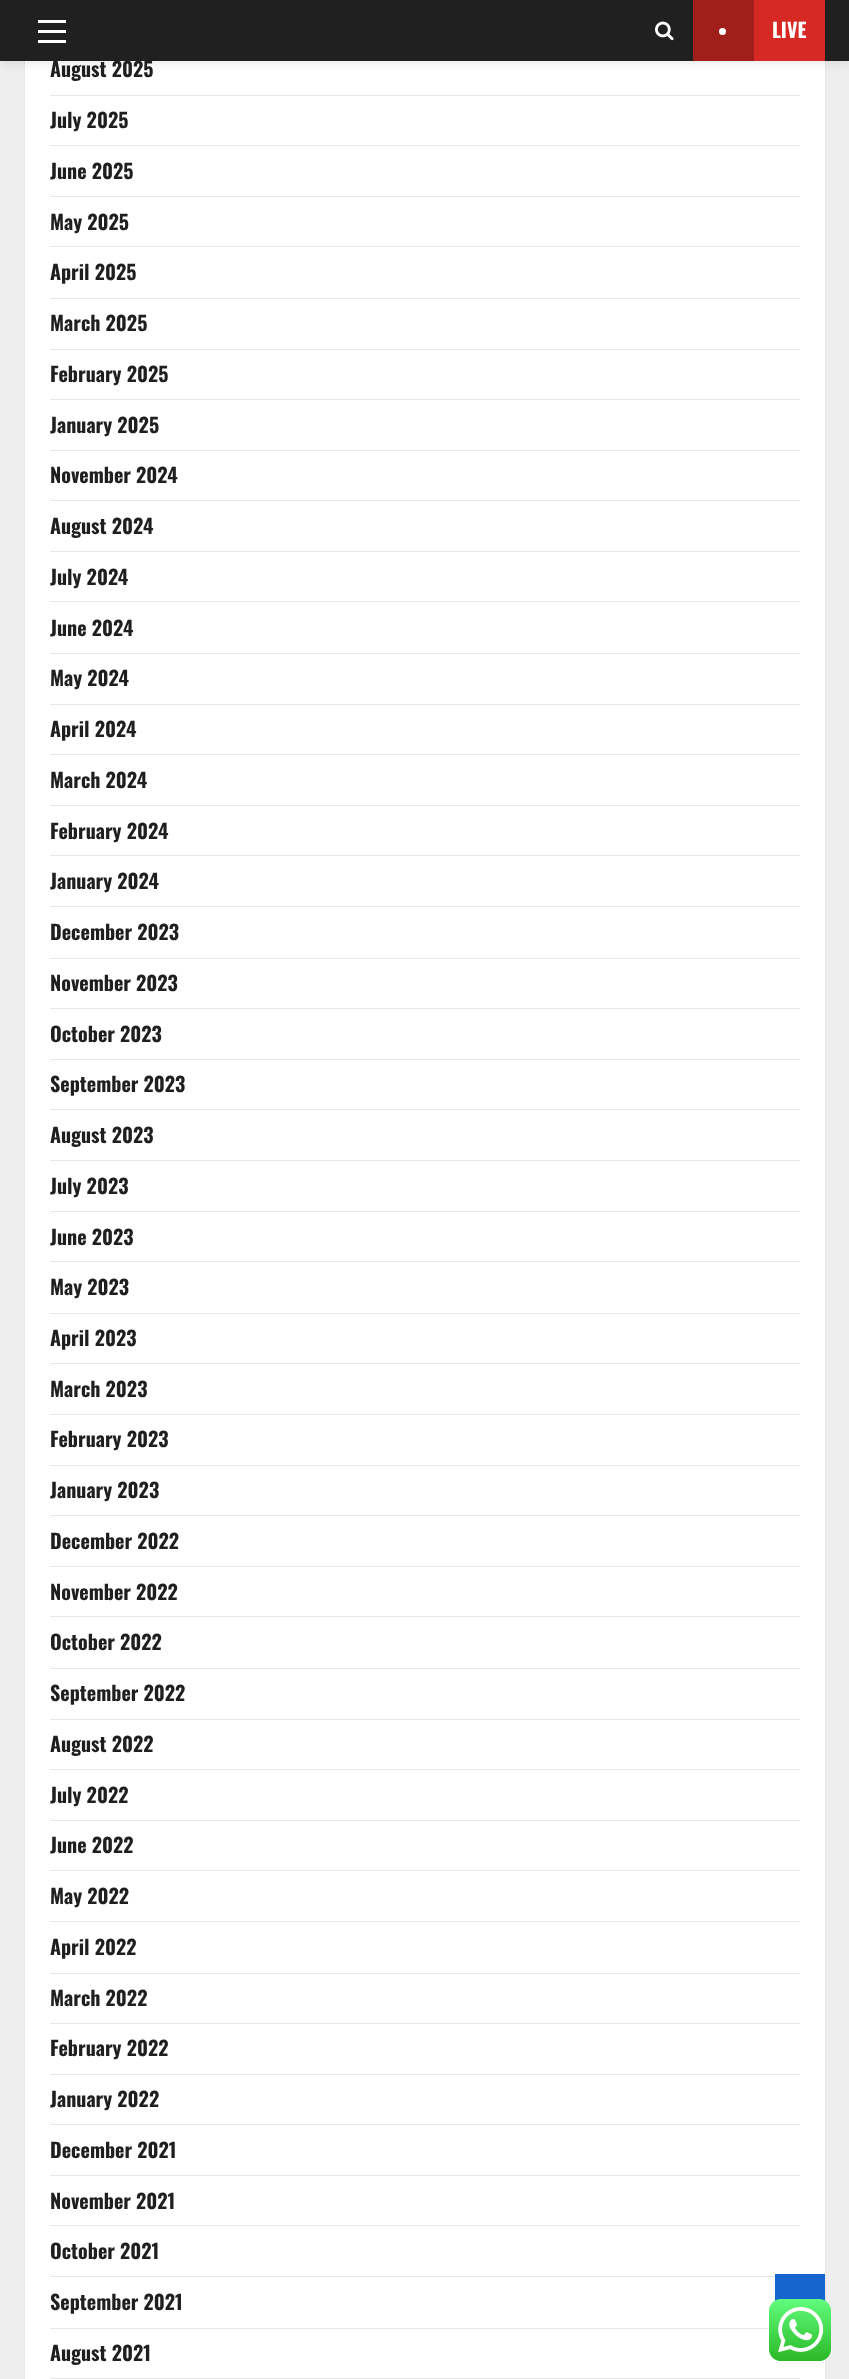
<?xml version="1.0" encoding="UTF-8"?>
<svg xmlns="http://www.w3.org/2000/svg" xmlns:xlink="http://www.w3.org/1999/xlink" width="849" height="2379">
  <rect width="100%" height="100%" fill="#eeeeee" />
  <rect x="25" y="-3" width="800" height="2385" fill="#000000" fill-opacity="0.08" filter="blur(1px)" />
  <rect x="25" y="61" width="800" height="2318" fill="#ffffff" />
  <rect y="3" width="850" height="61" fill="#000000" fill-opacity="0.08" filter="blur(5px)" />
  <rect x="50" y="95" width="750" height="1" fill="#e6e6e6" />
  <rect x="50" y="145" width="750" height="1" fill="#e6e6e6" />
  <rect x="50" y="196" width="750" height="1" fill="#e6e6e6" />
  <rect x="50" y="246" width="750" height="1" fill="#e6e6e6" />
  <rect x="50" y="298" width="750" height="1" fill="#e6e6e6" />
  <rect x="50" y="349" width="750" height="1" fill="#e6e6e6" />
  <rect x="50" y="399" width="750" height="1" fill="#e6e6e6" />
  <rect x="50" y="450" width="750" height="1" fill="#e6e6e6" />
  <rect x="50" y="500" width="750" height="1" fill="#e6e6e6" />
  <rect x="50" y="551" width="750" height="1" fill="#e6e6e6" />
  <rect x="50" y="601" width="750" height="1" fill="#e6e6e6" />
  <rect x="50" y="653" width="750" height="1" fill="#e6e6e6" />
  <rect x="50" y="704" width="750" height="1" fill="#e6e6e6" />
  <rect x="50" y="754" width="750" height="1" fill="#e6e6e6" />
  <rect x="50" y="805" width="750" height="1" fill="#e6e6e6" />
  <rect x="50" y="855" width="750" height="1" fill="#e6e6e6" />
  <rect x="50" y="906" width="750" height="1" fill="#e6e6e6" />
  <rect x="50" y="958" width="750" height="1" fill="#e6e6e6" />
  <rect x="50" y="1008" width="750" height="1" fill="#e6e6e6" />
  <rect x="50" y="1059" width="750" height="1" fill="#e6e6e6" />
  <rect x="50" y="1109" width="750" height="1" fill="#e6e6e6" />
  <rect x="50" y="1160" width="750" height="1" fill="#e6e6e6" />
  <rect x="50" y="1211" width="750" height="1" fill="#e6e6e6" />
  <rect x="50" y="1261" width="750" height="1" fill="#e6e6e6" />
  <rect x="50" y="1313" width="750" height="1" fill="#e6e6e6" />
  <rect x="50" y="1363" width="750" height="1" fill="#e6e6e6" />
  <rect x="50" y="1414" width="750" height="1" fill="#e6e6e6" />
  <rect x="50" y="1465" width="750" height="1" fill="#e6e6e6" />
  <rect x="50" y="1515" width="750" height="1" fill="#e6e6e6" />
  <rect x="50" y="1566" width="750" height="1" fill="#e6e6e6" />
  <rect x="50" y="1616" width="750" height="1" fill="#e6e6e6" />
  <rect x="50" y="1668" width="750" height="1" fill="#e6e6e6" />
  <rect x="50" y="1719" width="750" height="1" fill="#e6e6e6" />
  <rect x="50" y="1769" width="750" height="1" fill="#e6e6e6" />
  <rect x="50" y="1820" width="750" height="1" fill="#e6e6e6" />
  <rect x="50" y="1870" width="750" height="1" fill="#e6e6e6" />
  <rect x="50" y="1921" width="750" height="1" fill="#e6e6e6" />
  <rect x="50" y="1973" width="750" height="1" fill="#e6e6e6" />
  <rect x="50" y="2023" width="750" height="1" fill="#e6e6e6" />
  <rect x="50" y="2074" width="750" height="1" fill="#e6e6e6" />
  <rect x="50" y="2124" width="750" height="1" fill="#e6e6e6" />
  <rect x="50" y="2175" width="750" height="1" fill="#e6e6e6" />
  <rect x="50" y="2225" width="750" height="1" fill="#e6e6e6" />
  <rect x="50" y="2276" width="725" height="1" fill="#e6e6e6" />
  <rect x="50" y="2328" width="719" height="1" fill="#e6e6e6" />
  <rect x="50" y="2378" width="750" height="1" fill="#e6e6e6" />
  <rect x="775" y="2274" width="50" height="27" fill="#1665cf" />
  <path d="M 812.5 2307.5 h -25 l 12.5 -12.5 z" fill="#1665cf" />
  <image x="769" y="2299" width="62" height="62" xlink:href="image2.png" />
  <text x="50" y="77" style="font-family: Oswald; font-size: 20px; font-weight: bold; fill: #1f1f1f">August 2025</text>
  <rect width="849" height="61" fill="#202020" />
  <rect x="693" width="61" height="61" fill="#a11f1b" />
  <circle cx="722.5" cy="31.5" r="3.5" fill="#ffffff" />
  <image x="655" y="21" width="19" height="20" xlink:href="image1.png" />
  <rect x="38" y="40" width="28" height="3" fill="#ffffff" />
  <rect x="38" y="20" width="28" height="3" fill="#ffffff" />
  <rect x="38" y="30" width="28" height="3" fill="#ffffff" />
  <rect x="754" width="71" height="61" fill="#d72924" />
  <text x="772" y="38" style="font-family: Oswald; font-size: 20px; font-weight: bold; fill: #ffffff">LIVE</text>
  <text x="50" y="128" style="font-family: Oswald; font-size: 20px; font-weight: bold; fill: #1f1f1f">July 2025</text>
  <text x="50" y="179" style="font-family: Oswald; font-size: 20px; font-weight: bold; fill: #1f1f1f">June 2025</text>
  <text x="50" y="230" style="font-family: Oswald; font-size: 20px; font-weight: bold; fill: #1f1f1f">May 2025</text>
  <text x="50" y="280" style="font-family: Oswald; font-size: 20px; font-weight: bold; fill: #1f1f1f">April 2025</text>
  <text x="50" y="331" style="font-family: Oswald; font-size: 20px; font-weight: bold; fill: #1f1f1f">March 2025</text>
  <text x="50" y="382" style="font-family: Oswald; font-size: 20px; font-weight: bold; fill: #1f1f1f">February 2025</text>
  <text x="50" y="433" style="font-family: Oswald; font-size: 20px; font-weight: bold; fill: #1f1f1f">January 2025</text>
  <text x="50" y="483" style="font-family: Oswald; font-size: 20px; font-weight: bold; fill: #1f1f1f">November 2024</text>
  <text x="50" y="534" style="font-family: Oswald; font-size: 20px; font-weight: bold; fill: #1f1f1f">August 2024</text>
  <text x="50" y="585" style="font-family: Oswald; font-size: 20px; font-weight: bold; fill: #1f1f1f">July 2024</text>
  <text x="50" y="636" style="font-family: Oswald; font-size: 20px; font-weight: bold; fill: #1f1f1f">June 2024</text>
  <text x="50" y="686" style="font-family: Oswald; font-size: 20px; font-weight: bold; fill: #1f1f1f">May 2024</text>
  <text x="50" y="737" style="font-family: Oswald; font-size: 20px; font-weight: bold; fill: #1f1f1f">April 2024</text>
  <text x="50" y="788" style="font-family: Oswald; font-size: 20px; font-weight: bold; fill: #1f1f1f">March 2024</text>
  <text x="50" y="839" style="font-family: Oswald; font-size: 20px; font-weight: bold; fill: #1f1f1f">February 2024</text>
  <text x="50" y="889" style="font-family: Oswald; font-size: 20px; font-weight: bold; fill: #1f1f1f">January 2024</text>
  <text x="50" y="940" style="font-family: Oswald; font-size: 20px; font-weight: bold; fill: #1f1f1f">December 2023</text>
  <text x="50" y="991" style="font-family: Oswald; font-size: 20px; font-weight: bold; fill: #1f1f1f">November 2023</text>
  <text x="50" y="1042" style="font-family: Oswald; font-size: 20px; font-weight: bold; fill: #1f1f1f">October 2023</text>
  <text x="50" y="1092" style="font-family: Oswald; font-size: 20px; font-weight: bold; fill: #1f1f1f">September 2023</text>
  <text x="50" y="1143" style="font-family: Oswald; font-size: 20px; font-weight: bold; fill: #1f1f1f">August 2023</text>
  <text x="50" y="1194" style="font-family: Oswald; font-size: 20px; font-weight: bold; fill: #1f1f1f">July 2023</text>
  <text x="50" y="1245" style="font-family: Oswald; font-size: 20px; font-weight: bold; fill: #1f1f1f">June 2023</text>
  <text x="50" y="1295" style="font-family: Oswald; font-size: 20px; font-weight: bold; fill: #1f1f1f">May 2023</text>
  <text x="50" y="1346" style="font-family: Oswald; font-size: 20px; font-weight: bold; fill: #1f1f1f">April 2023</text>
  <text x="50" y="1397" style="font-family: Oswald; font-size: 20px; font-weight: bold; fill: #1f1f1f">March 2023</text>
  <text x="50" y="1447" style="font-family: Oswald; font-size: 20px; font-weight: bold; fill: #1f1f1f">February 2023</text>
  <text x="50" y="1498" style="font-family: Oswald; font-size: 20px; font-weight: bold; fill: #1f1f1f">January 2023</text>
  <text x="50" y="1549" style="font-family: Oswald; font-size: 20px; font-weight: bold; fill: #1f1f1f">December 2022</text>
  <text x="50" y="1600" style="font-family: Oswald; font-size: 20px; font-weight: bold; fill: #1f1f1f">November 2022</text>
  <text x="50" y="1650" style="font-family: Oswald; font-size: 20px; font-weight: bold; fill: #1f1f1f">October 2022</text>
  <text x="50" y="1701" style="font-family: Oswald; font-size: 20px; font-weight: bold; fill: #1f1f1f">September 2022</text>
  <text x="50" y="1752" style="font-family: Oswald; font-size: 20px; font-weight: bold; fill: #1f1f1f">August 2022</text>
  <text x="50" y="1803" style="font-family: Oswald; font-size: 20px; font-weight: bold; fill: #1f1f1f">July 2022</text>
  <text x="50" y="1853" style="font-family: Oswald; font-size: 20px; font-weight: bold; fill: #1f1f1f">June 2022</text>
  <text x="50" y="1904" style="font-family: Oswald; font-size: 20px; font-weight: bold; fill: #1f1f1f">May 2022</text>
  <text x="50" y="1955" style="font-family: Oswald; font-size: 20px; font-weight: bold; fill: #1f1f1f">April 2022</text>
  <text x="50" y="2006" style="font-family: Oswald; font-size: 20px; font-weight: bold; fill: #1f1f1f">March 2022</text>
  <text x="50" y="2056" style="font-family: Oswald; font-size: 20px; font-weight: bold; fill: #1f1f1f">February 2022</text>
  <text x="50" y="2107" style="font-family: Oswald; font-size: 20px; font-weight: bold; fill: #1f1f1f">January 2022</text>
  <text x="50" y="2158" style="font-family: Oswald; font-size: 20px; font-weight: bold; fill: #1f1f1f">December 2021</text>
  <text x="50" y="2209" style="font-family: Oswald; font-size: 20px; font-weight: bold; fill: #1f1f1f">November 2021</text>
  <text x="50" y="2259" style="font-family: Oswald; font-size: 20px; font-weight: bold; fill: #1f1f1f">October 2021</text>
  <text x="50" y="2310" style="font-family: Oswald; font-size: 20px; font-weight: bold; fill: #1f1f1f">September 2021</text>
  <text x="50" y="2361" style="font-family: Oswald; font-size: 20px; font-weight: bold; fill: #1f1f1f">August 2021</text>
</svg>
